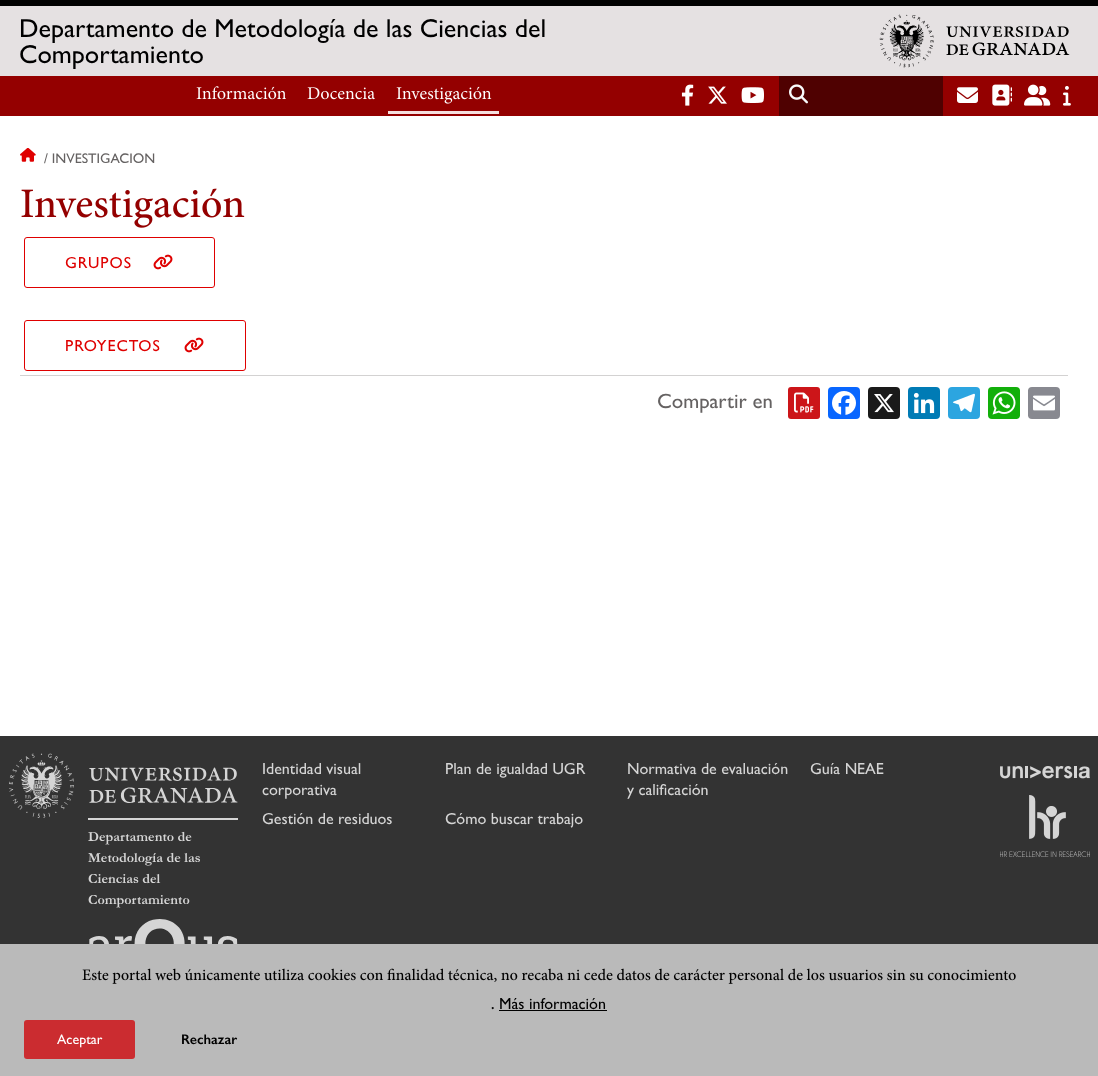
<?xml version="1.0" encoding="UTF-8"?>
<svg xmlns="http://www.w3.org/2000/svg" xmlns:xlink="http://www.w3.org/1999/xlink" width="1098" height="1076">
  <rect width="100%" height="100%" fill="#ffffff" />
  <rect width="1098" height="6" fill="#010101" />
  <rect y="76" width="1098" height="40" fill="#940000" />
  <rect y="6" width="1098" height="70" fill="#e5e1e2" />
  <image x="879" y="14" width="191" height="54" xlink:href="image1.png" />
  <image x="196" y="86" width="90" height="14" xlink:href="image2.png" />
  <image x="307" y="87" width="68" height="13" xlink:href="image3.png" />
  <image x="396" y="86" width="96" height="18" xlink:href="image4.png" />
  <rect x="388" y="111" width="111" height="3" fill="#f5dfdf" />
  <image x="681" y="84" width="13" height="22" xlink:href="image5.png" />
  <image x="708" y="86" width="19" height="18" xlink:href="image6.png" />
  <image x="741" y="87" width="23" height="16" xlink:href="image7.png" />
  <rect x="779" y="76" width="164" height="40" fill="#4f0101" />
  <image x="789" y="84" width="19" height="20" xlink:href="image8.png" />
  <image x="957" y="87" width="21" height="16" xlink:href="image9.png" />
  <image x="992" y="84" width="20" height="22" xlink:href="image10.png" />
  <image x="1024" y="84" width="27" height="22" xlink:href="image11.png" />
  <image x="1063" y="86" width="8" height="20" xlink:href="image12.png" />
  <image x="20" y="148" width="16" height="14" xlink:href="image13.png" />
  <image x="21" y="188" width="224" height="40" xlink:href="image14.png" />
  <rect x="24.5" y="237.5" width="190" height="50" rx="2.5" fill="none" stroke="#df0000" />
  <image x="153" y="254" width="20" height="16" xlink:href="image15.png" />
  <rect x="24.5" y="320.5" width="221" height="50" rx="2.5" fill="none" stroke="#df0000" />
  <image x="184" y="337" width="20" height="16" xlink:href="image15.png" />
  <rect x="20" y="375" width="1048" height="1" fill="#d3d2d2" />
  <rect x="788" y="387" width="32" height="32" rx="3" fill="#cc1519" />
  <image x="794" y="392" width="20" height="21" xlink:href="image16.png" />
  <rect x="828" y="387" width="32" height="32" rx="4" fill="#0866ff" />
  <image x="832" y="391" width="24" height="24" xlink:href="image17.png" />
  <rect x="868" y="387" width="32" height="32" rx="4" fill="#1a1a1a" />
  <image x="874" y="394" width="20" height="19" xlink:href="image18.png" />
  <rect x="908" y="387" width="32" height="32" rx="4" fill="#007bb5" />
  <image x="913" y="392" width="22" height="22" xlink:href="image19.png" />
  <rect x="948" y="387" width="32" height="32" rx="4" fill="#2ca5e0" />
  <image x="953" y="393" width="22" height="20" xlink:href="image20.png" />
  <rect x="988" y="387" width="32" height="32" rx="4" fill="#12af0a" />
  <image x="992" y="391" width="24" height="24" xlink:href="image21.png" />
  <rect x="1028" y="387" width="32" height="32" rx="4" fill="#888990" />
  <image x="1033" y="395" width="22" height="16" xlink:href="image22.png" />
  <rect y="736" width="1098" height="208" fill="#333333" />
  <image x="1000" y="766" width="90" height="13" xlink:href="image23.png" />
  <image x="1000" y="795" width="90" height="62" xlink:href="image24.png" />
  <image x="9" y="753" width="229" height="65" xlink:href="image25.png" />
  <rect x="88" y="818" width="150" height="2" fill="#d5d5d5" />
  <image x="89" y="919" width="149" height="25" xlink:href="image26.png" />
  <rect y="944" width="1098" height="132" fill="#bababa" />
  <image x="82" y="968" width="934" height="16" xlink:href="image27.png" />
  <rect x="499" y="1010" width="108" height="1" fill="#000000" />
  <rect x="24" y="1020" width="111" height="39" rx="3" fill="#cb2c30" />
  <text x="19" y="37" style="font-family: Gill Sans; font-size: 26px; fill: #000000">Departamento de Metodología de las Ciencias del</text>
  <text x="19" y="63" style="font-family: Gill Sans; font-size: 26px; fill: #000000">Comportamiento</text>
  <text x="44" y="163" style="font-family: Gill Sans; font-size: 14px; fill: #656262">/ INVESTIGACION</text>
  <text x="65" y="268" style="font-family: Gill Sans; font-size: 16px; letter-spacing: 1px; fill: #df0000">GRUPOS</text>
  <text x="65" y="351" style="font-family: Gill Sans; font-size: 16px; letter-spacing: 1px; fill: #df0000">PROYECTOS</text>
  <text x="657" y="408" style="font-family: Gill Sans; font-size: 20.75px; fill: #656262">Compartir en</text>
  <text x="262" y="774" style="font-family: Gill Sans; font-size: 16px; fill: #d5d5d5">Identidad visual</text>
  <text x="262" y="795" style="font-family: Gill Sans; font-size: 16px; fill: #d5d5d5">corporativa</text>
  <text x="445" y="774" style="font-family: Gill Sans; font-size: 16px; fill: #d5d5d5">Plan de igualdad UGR</text>
  <text x="627" y="774" style="font-family: Gill Sans; font-size: 16px; fill: #d5d5d5">Normativa de evaluación</text>
  <text x="627" y="795" style="font-family: Gill Sans; font-size: 16px; fill: #d5d5d5">y calificación</text>
  <text x="810" y="774" style="font-family: Gill Sans; font-size: 16px; fill: #d5d5d5">Guía NEAE</text>
  <text x="262" y="824" style="font-family: Gill Sans; font-size: 16px; fill: #d5d5d5">Gestión de residuos</text>
  <text x="445" y="824" style="font-family: Gill Sans; font-size: 16px; fill: #d5d5d5">Cómo buscar trabajo</text>
  <text x="88" y="841" style="font-family: Garamond; font-size: 14px; font-weight: bold; fill: #d5d5d5">Departamento de</text>
  <text x="88" y="862" style="font-family: Garamond; font-size: 14px; font-weight: bold; fill: #d5d5d5">Metodología de las</text>
  <text x="88" y="883" style="font-family: Garamond; font-size: 14px; font-weight: bold; fill: #d5d5d5">Ciencias del</text>
  <text x="88" y="904" style="font-family: Garamond; font-size: 14px; font-weight: bold; fill: #d5d5d5">Comportamiento</text>
  <text x="491" y="1009" style="font-family: Gill Sans; font-size: 14px; font-weight: 600; fill: #000000">.</text>
  <text x="499" y="1009" style="font-family: Gill Sans; font-size: 16px; fill: #000000">Más información</text>
  <text x="57" y="1044" style="font-family: Gill Sans; font-size: 14px; fill: #ffffff">Aceptar</text>
  <text x="181" y="1044" style="font-family: Gill Sans; font-size: 14px; font-weight: 600; fill: #000000">Rechazar</text>
</svg>
